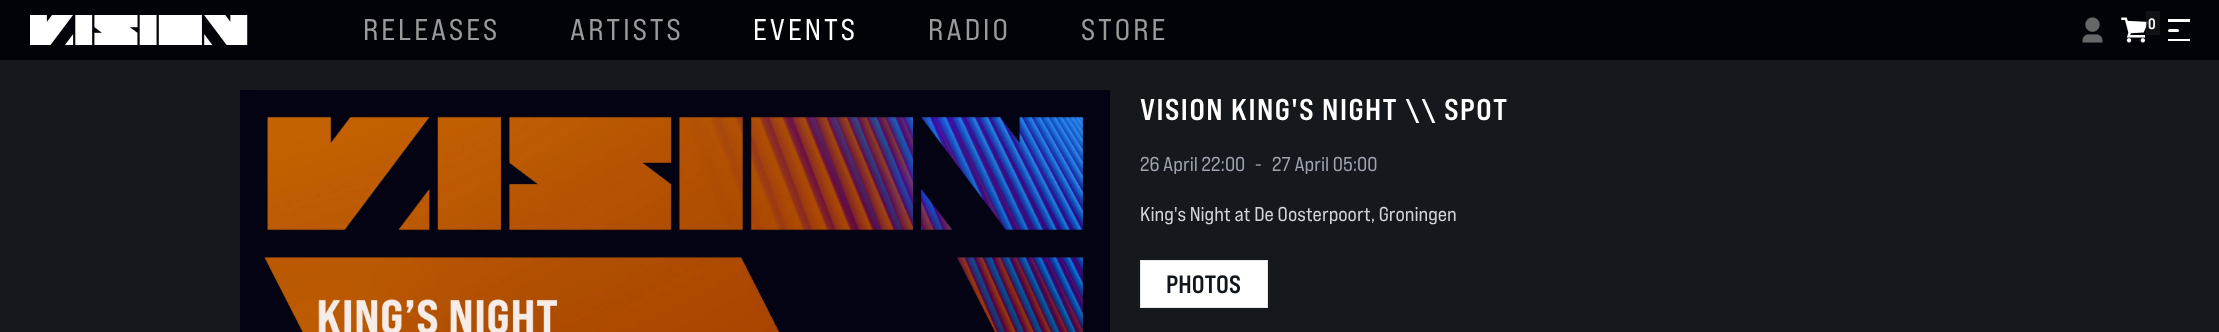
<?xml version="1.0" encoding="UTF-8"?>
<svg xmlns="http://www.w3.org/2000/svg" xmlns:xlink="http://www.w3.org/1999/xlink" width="2219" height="332">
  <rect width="100%" height="100%" fill="#15181c" />
  <rect width="2219" height="60" fill="#020308" />
  <image x="30" y="15" width="218" height="30" xlink:href="image1.png" />
  <image x="2082" y="17" width="21" height="26" xlink:href="image2.png" />
  <image x="2121" y="17" width="27" height="26" xlink:href="image3.png" />
  <rect x="2146" y="11" width="14" height="24" fill="#15181c" fill-opacity="0.75" />
  <rect x="2168" y="19" width="22" height="3" fill="#ffffff" />
  <rect x="2168" y="29" width="11" height="3" rx="1.5" fill="#ffffff" />
  <rect x="2168" y="39" width="22" height="2" fill="#ffffff" />
  <image x="240" y="90" width="870" height="242" xlink:href="image4.png" />
  <rect x="1140.5" y="260.5" width="127" height="47" fill="#ffffff" stroke="#e5e7eb" />
  <text x="363" y="40" style="font-family: Bebas Neue; font-size: 30px; letter-spacing: 3px; fill: #9a9a9c">RELEASES</text>
  <text x="570" y="40" style="font-family: Bebas Neue; font-size: 30px; letter-spacing: 3px; fill: #9a9a9c">ARTISTS</text>
  <text x="753" y="40" style="font-family: Bebas Neue; font-size: 30px; letter-spacing: 3px; fill: #ffffff">EVENTS</text>
  <text x="928" y="40" style="font-family: Bebas Neue; font-size: 30px; letter-spacing: 3px; fill: #9a9a9c">RADIO</text>
  <text x="1081" y="40" style="font-family: Bebas Neue; font-size: 30px; letter-spacing: 3px; fill: #9a9a9c">STORE</text>
  <text x="2148" y="29" style="font-family: Bebas Neue; font-size: 15px; font-weight: bold; letter-spacing: 1.5px; fill: #ffffff">0</text>
  <text x="1140" y="120" style="font-family: Bebas Neue; font-size: 30px; font-weight: bold; letter-spacing: 1.5px; fill: #ffffff">VISION KING'S NIGHT \\ SPOT</text>
  <text x="1140" y="171" style="font-family: Bebas Neue; font-size: 20px; fill: #9ca3af">26 April 22:00</text>
  <text x="1255" y="171" style="font-family: Bebas Neue; font-size: 20px; fill: #9ca3af">-</text>
  <text x="1272" y="171" style="font-family: Bebas Neue; font-size: 20px; fill: #9ca3af">27 April 05:00</text>
  <text x="1140" y="221" style="font-family: Bebas Neue; font-size: 20px; fill: #d1d5db">King's Night at De Oosterpoort, Groningen</text>
  <text x="1166" y="293" style="font-family: Bebas Neue; font-size: 25px; font-weight: bold; fill: #11161c">PHOTOS</text>
</svg>
